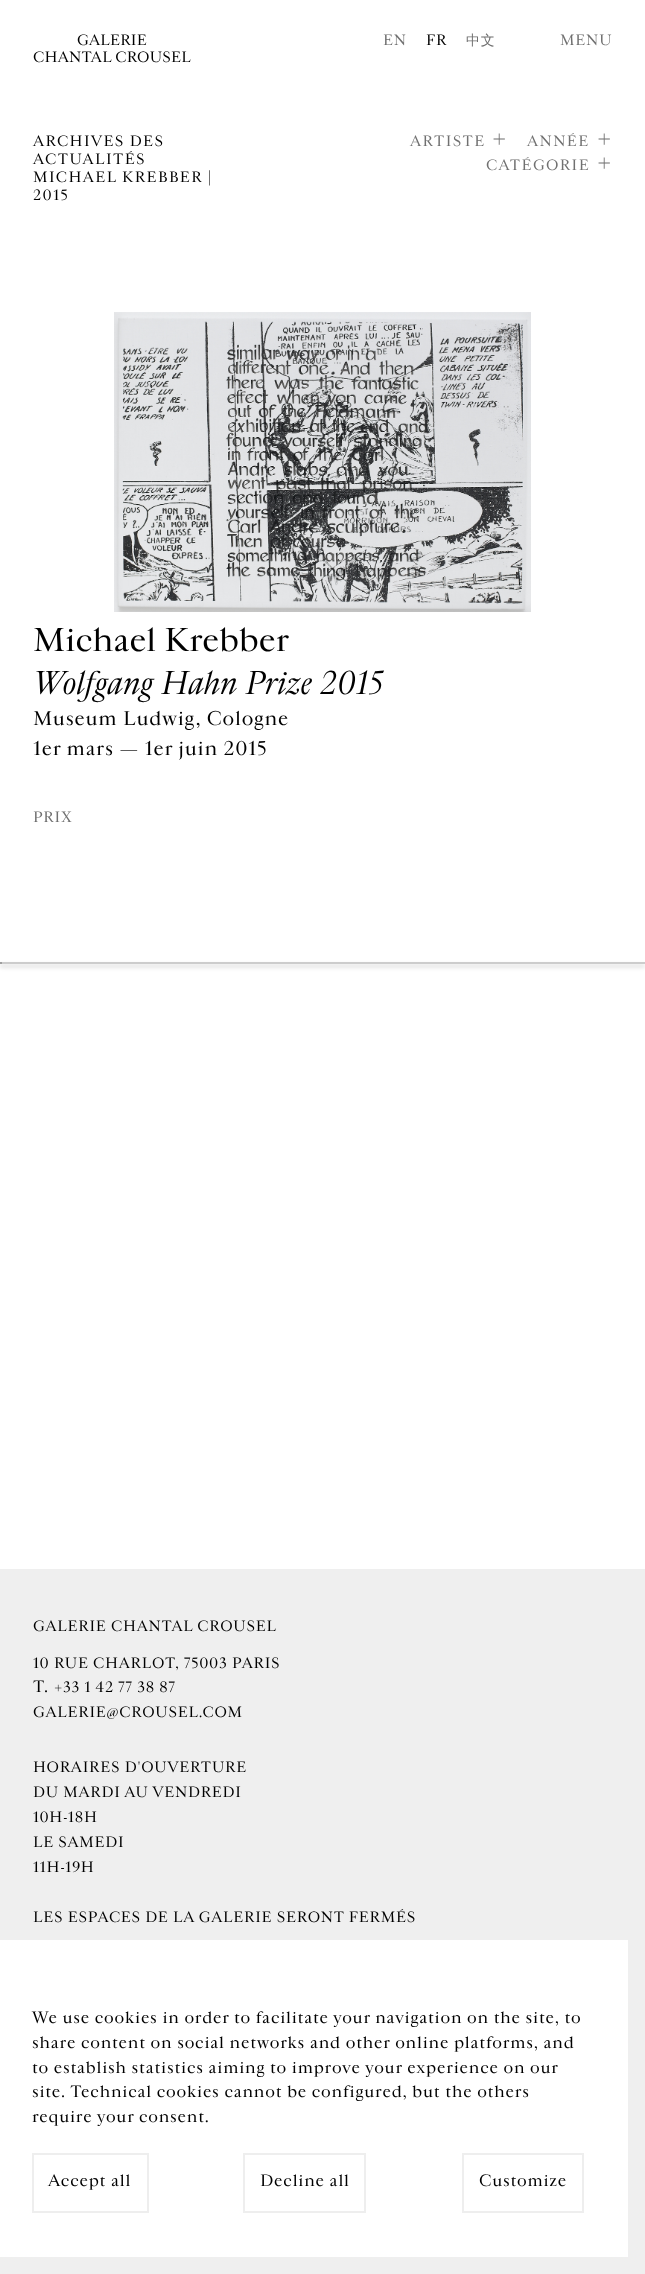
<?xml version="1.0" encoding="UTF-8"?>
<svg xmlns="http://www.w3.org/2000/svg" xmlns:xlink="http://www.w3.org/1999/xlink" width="645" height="2274">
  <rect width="100%" height="100%" fill="#ffffff" />
  <image x="114" y="312" width="417" height="300" xlink:href="image1.png" />
  <rect y="965" width="645" height="2" fill="#000000" fill-opacity="0.2" filter="blur(2px)" />
  <rect y="962" width="645" height="2" fill="#cccccc" />
  <rect y="962" width="2" height="2" fill="#9f9f9f" />
  <rect y="1569" width="645" height="705" fill="#efefef" />
  <rect y="1940" width="628" height="317" fill="#ffffff" />
  <rect x="33" y="2154" width="115" height="58" fill="none" stroke="#eeeeee" stroke-width="2" />
  <rect x="244" y="2154" width="121" height="58" fill="none" stroke="#eeeeee" stroke-width="2" />
  <rect x="463" y="2154" width="120" height="58" fill="none" stroke="#eeeeee" stroke-width="2" />
  <text x="77" y="45" style="font-family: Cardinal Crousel; font-size: 13.9px; letter-spacing: 0.25px; fill: #000000">GALERIE</text>
  <text x="33" y="62" style="font-family: Cardinal Crousel; font-size: 13.9px; letter-spacing: 0.25px; fill: #000000">CHANTAL CROUSEL</text>
  <text x="383" y="45" style="font-family: Cardinal Crousel; font-size: 13.9px; letter-spacing: 0.77px; fill: #707070">EN</text>
  <text x="426" y="45" style="font-family: Cardinal Crousel; font-size: 13.9px; letter-spacing: 0.77px; fill: #000000">FR</text>
  <text x="466" y="45" style="font-family: WenQuanYi Zen Hei; font-size: 13.9px; font-weight: 500; letter-spacing: 0.77px; fill: #707070">中文</text>
  <text x="560" y="45" style="font-family: Cardinal Crousel; font-size: 13.9px; letter-spacing: 0.77px; fill: #707070">MENU</text>
  <text x="33" y="146" style="font-family: Cardinal Crousel; font-size: 13.9px; letter-spacing: 1.4px; fill: #000000">ARCHIVES DES</text>
  <text x="33" y="164" style="font-family: Cardinal Crousel; font-size: 13.9px; letter-spacing: 1.4px; fill: #000000">ACTUALITÉS</text>
  <text x="33" y="182" style="font-family: Cardinal Crousel; font-size: 13.9px; letter-spacing: 1.4px; fill: #000000">MICHAEL KREBBER |</text>
  <text x="33" y="200" style="font-family: Cardinal Crousel; font-size: 13.9px; letter-spacing: 1.4px; fill: #000000">2015</text>
  <text x="410" y="146" style="font-family: Cardinal Crousel; font-size: 13.9px; letter-spacing: 1.4px; fill: #707070">ARTISTE</text>
  <text x="492" y="146" style="font-family: Cardinal Crousel; font-size: 24px; letter-spacing: 1.4px; fill: #707070">+</text>
  <text x="527" y="146" style="font-family: Cardinal Crousel; font-size: 13.9px; letter-spacing: 1.4px; fill: #707070">ANNÉE</text>
  <text x="597" y="146" style="font-family: Cardinal Crousel; font-size: 24px; letter-spacing: 1.4px; fill: #707070">+</text>
  <text x="486" y="170" style="font-family: Cardinal Crousel; font-size: 13.9px; letter-spacing: 1.4px; fill: #707070">CATÉGORIE</text>
  <text x="597" y="170" style="font-family: Cardinal Crousel; font-size: 24px; letter-spacing: 1.4px; fill: #707070">+</text>
  <text x="33" y="651" style="font-family: Cardinal Crousel; font-size: 30.75px; fill: #000000">Michael Krebber</text>
  <text x="33" y="694" style="font-family: Cardinal Crousel; font-size: 30.75px; font-style: italic; fill: #000000">Wolfgang Hahn Prize 2015</text>
  <text x="33" y="725" style="font-family: Cardinal Crousel; font-size: 18.5px; letter-spacing: 0.77px; fill: #000000">Museum Ludwig, Cologne</text>
  <text x="33" y="755" style="font-family: Cardinal Crousel; font-size: 18.5px; letter-spacing: 0.77px; fill: #000000">1er mars — 1er juin 2015</text>
  <text x="33" y="822" style="font-family: Cardinal Crousel; font-size: 13.9px; letter-spacing: 0.77px; fill: #707070">PRIX</text>
  <text x="33" y="1631" style="font-family: Cardinal Crousel; font-size: 13.9px; letter-spacing: 0.77px; fill: #000000">GALERIE CHANTAL CROUSEL</text>
  <text x="33" y="1668" style="font-family: Cardinal Crousel; font-size: 13.9px; letter-spacing: 0.77px; fill: #000000">10 RUE CHARLOT, 75003 PARIS</text>
  <text x="33" y="1692" style="font-family: Cardinal Crousel; font-size: 15.4px; letter-spacing: 0.77px; fill: #000000">T.</text>
  <text x="54" y="1692" style="font-family: Cardinal Crousel; font-size: 13.9px; letter-spacing: 0.77px; fill: #000000">+33 1 42 77 38 87</text>
  <text x="33" y="1717" style="font-family: Cardinal Crousel; font-size: 13.9px; letter-spacing: 0.77px; fill: #000000">GALERIE@CROUSEL.COM</text>
  <text x="33" y="1772" style="font-family: Cardinal Crousel; font-size: 13.9px; letter-spacing: 0.77px; fill: #000000">HORAIRES D'OUVERTURE</text>
  <text x="33" y="1797" style="font-family: Cardinal Crousel; font-size: 13.9px; letter-spacing: 0.77px; fill: #000000">DU MARDI AU VENDREDI</text>
  <text x="33" y="1822" style="font-family: Cardinal Crousel; font-size: 13.9px; letter-spacing: 0.77px; fill: #000000">10H-18H</text>
  <text x="33" y="1847" style="font-family: Cardinal Crousel; font-size: 13.9px; letter-spacing: 0.77px; fill: #000000">LE SAMEDI</text>
  <text x="33" y="1872" style="font-family: Cardinal Crousel; font-size: 13.9px; letter-spacing: 0.77px; fill: #000000">11H-19H</text>
  <text x="33" y="1922" style="font-family: Cardinal Crousel; font-size: 13.9px; letter-spacing: 0.77px; fill: #000000">LES ESPACES DE LA GALERIE SERONT FERMÉS</text>
  <text x="32" y="2023" style="font-family: Cardinal Crousel; font-size: 15.4px; letter-spacing: 0.77px; fill: #000000">We use cookies in order to facilitate your navigation on the site, to</text>
  <text x="32" y="2048" style="font-family: Cardinal Crousel; font-size: 15.4px; letter-spacing: 0.77px; fill: #000000">share content on social networks and other online platforms, and</text>
  <text x="32" y="2073" style="font-family: Cardinal Crousel; font-size: 15.4px; letter-spacing: 0.77px; fill: #000000">to establish statistics aiming to improve your experience on our</text>
  <text x="32" y="2097" style="font-family: Cardinal Crousel; font-size: 15.4px; letter-spacing: 0.77px; fill: #000000">site. Technical cookies cannot be configured, but the others</text>
  <text x="32" y="2122" style="font-family: Cardinal Crousel; font-size: 15.4px; letter-spacing: 0.77px; fill: #000000">require your consent.</text>
  <text x="48" y="2186" style="font-family: Cardinal Crousel; font-size: 15.4px; letter-spacing: 0.77px; fill: #000000">Accept all</text>
  <text x="260" y="2186" style="font-family: Cardinal Crousel; font-size: 15.4px; letter-spacing: 0.77px; fill: #000000">Decline all</text>
  <text x="479" y="2186" style="font-family: Cardinal Crousel; font-size: 15.4px; letter-spacing: 0.77px; fill: #000000">Customize</text>
</svg>
